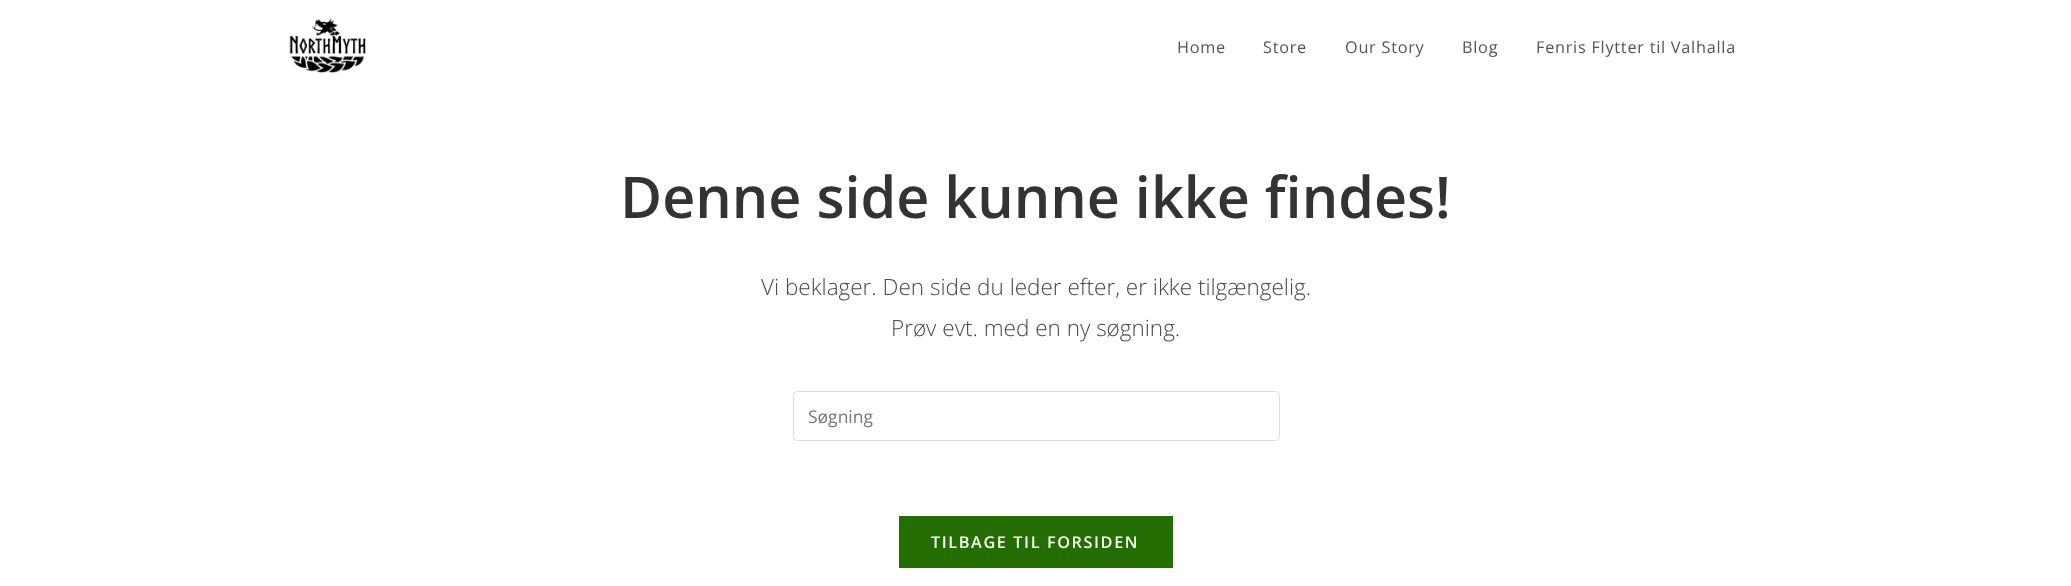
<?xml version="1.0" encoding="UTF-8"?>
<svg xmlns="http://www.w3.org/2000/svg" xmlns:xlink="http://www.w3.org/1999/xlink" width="2071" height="586">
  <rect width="100%" height="100%" fill="#ffffff" />
  <image x="289" y="18" width="77" height="55" xlink:href="image1.png" />
  <rect x="793.5" y="391.5" width="486" height="49" rx="3.5" fill="none" stroke="#dddddd" />
  <rect x="899" y="516" width="274" height="52" fill="#236d01" />
  <text x="1177" y="53" style="font-family: Open Sans; font-size: 16.25px; letter-spacing: 0.75px; fill: #555555">Home</text>
  <text x="1263" y="53" style="font-family: Open Sans; font-size: 16.25px; letter-spacing: 0.75px; fill: #555555">Store</text>
  <text x="1345" y="53" style="font-family: Open Sans; font-size: 16.25px; letter-spacing: 0.75px; fill: #555555">Our Story</text>
  <text x="1462" y="53" style="font-family: Open Sans; font-size: 16.25px; letter-spacing: 0.75px; fill: #555555">Blog</text>
  <text x="1536" y="53" style="font-family: Open Sans; font-size: 16.25px; letter-spacing: 0.75px; fill: #555555">Fenris Flytter til Valhalla</text>
  <text x="620" y="218" style="font-family: Open Sans; font-size: 57.5px; font-weight: 600; fill: #333333">Denne side kunne ikke findes!</text>
  <text x="761" y="295" style="font-family: Open Sans; font-size: 22.5px; font-weight: 300; fill: #4a4a4a">Vi beklager. Den side du leder efter, er ikke tilgængelig.</text>
  <text x="891" y="336" style="font-family: Open Sans; font-size: 22.5px; font-weight: 300; fill: #4a4a4a">Prøv evt. med en ny søgning.</text>
  <text x="808" y="423" style="font-family: Open Sans; font-size: 17.5px; fill: #757575">Søgning</text>
  <text x="931" y="548" style="font-family: Open Sans; font-size: 16.25px; font-weight: 600; letter-spacing: 1.6px; fill: #ffffff">TILBAGE TIL FORSIDEN</text>
</svg>
